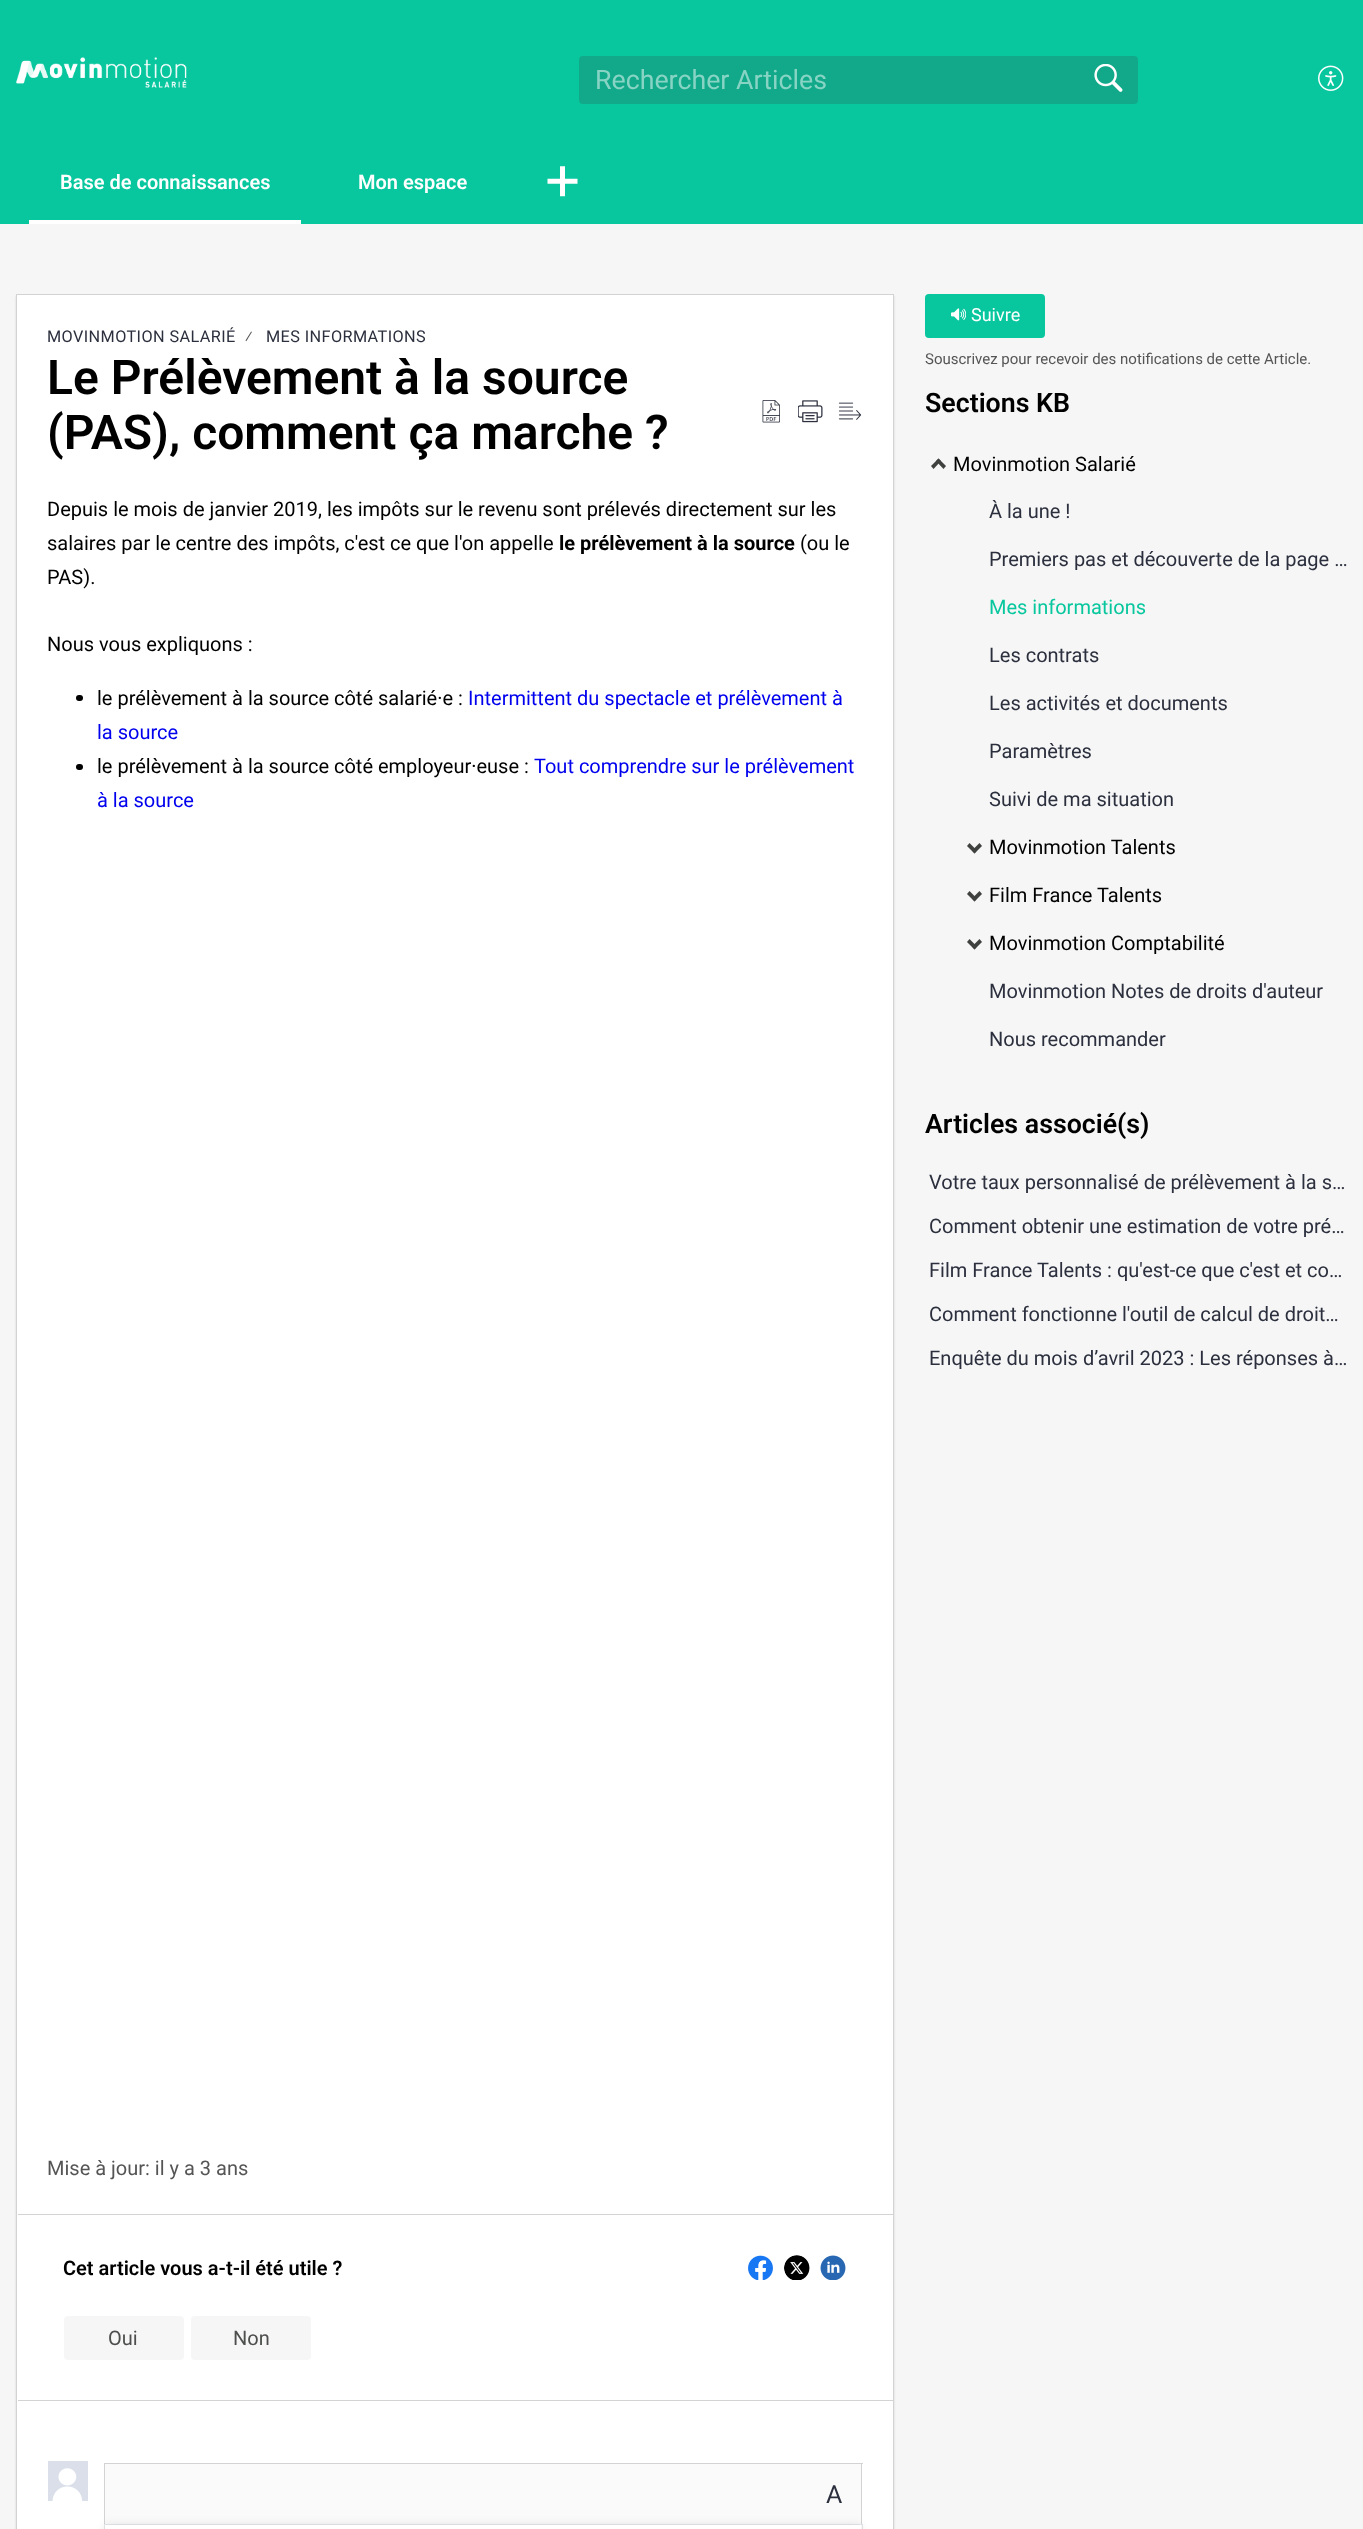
<?xml version="1.0" encoding="UTF-8"?>
<svg xmlns="http://www.w3.org/2000/svg" xmlns:xlink="http://www.w3.org/1999/xlink" width="1363" height="2529">
  <defs>
    <clipPath id="clip1"><path d="M 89 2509 h 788 v 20 h -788 z m 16 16 h 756 v 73 h -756 z" clip-rule="evenodd" /></clipPath>
  </defs>
  <rect width="100%" height="100%" fill="#f6f6f6" />
  <rect width="1363" height="224" fill="#08c79e" />
  <image x="16" y="57" width="171" height="31" xlink:href="image1.png" />
  <rect x="579" y="56" width="559" height="48" rx="4" fill="#11a989" />
  <image x="1094" y="64" width="29" height="28" xlink:href="image2.png" />
  <image x="1318" y="65" width="26" height="26" xlink:href="image3.png" />
  <rect x="29" y="220" width="272" height="4" fill="#ffffff" />
  <image x="547" y="166" width="31" height="31" xlink:href="image4.png" />
  <rect x="16" y="296" width="878" height="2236" fill="#202320" fill-opacity="0.15" filter="blur(1px)" />
  <rect x="17" y="295" width="876" height="2234" fill="#ffffff" />
  <rect x="16" y="294" width="878" height="1" fill="#d2d3d2" />
  <rect x="893" y="294" width="1" height="2235" fill="#d2d3d2" />
  <rect x="16" y="294" width="1" height="2235" fill="#d2d3d2" />
  <image x="762" y="400" width="18" height="23" xlink:href="image5.png" />
  <image x="798" y="400" width="25" height="23" xlink:href="image6.png" />
  <image x="838" y="402" width="24" height="18" xlink:href="image7.png" />
  <rect x="76" y="695" width="7" height="6" rx="3" fill="#000000" />
  <rect x="76" y="764" width="7" height="6" rx="3" fill="#000000" />
  <rect x="18" y="2214" width="875" height="1" fill="#d2d3d2" />
  <rect x="64" y="2316" width="120" height="44" rx="4" fill="#f6f6f6" />
  <rect x="191" y="2316" width="120" height="44" rx="4" fill="#f6f6f6" />
  <image x="748" y="2255" width="25" height="25" xlink:href="image8.png" />
  <image x="784" y="2255" width="26" height="25" xlink:href="image9.png" />
  <image x="820" y="2255" width="26" height="25" xlink:href="image10.png" />
  <rect x="18" y="2400" width="875" height="1" fill="#d2d3d2" />
  <image x="48" y="2461" width="40" height="40" xlink:href="image11.png" />
  <rect x="104" y="2463" width="759" height="1" fill="#d2d3d2" />
  <rect x="861" y="2463" width="1" height="61" fill="#d2d3d2" />
  <rect x="104" y="2463" width="1" height="61" fill="#d2d3d2" />
  <rect x="105" y="2464" width="756" height="60" fill="#fafafa" />
  <rect x="104.5" y="2524.5" width="758" height="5" fill="none" stroke="#e5e8ea" />
  <g clip-path="url(#clip1)">
    <rect x="105" y="2525" width="756" height="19" fill="#000000" fill-opacity="0.1" filter="blur(5px)" />
  </g>
  <rect x="925" y="294" width="120" height="44" rx="4" fill="#08c79e" />
  <image x="951" y="308" width="15" height="13" xlink:href="image12.png" />
  <path d="M 941 461 l -7.5 8 l -2.5 -3 l 7.5 -7.5 z" fill="#3e413e" />
  <path d="M 946 466 l -2.5 3 l -7.5 -8 l 2.5 -2.5 z" fill="#3e413e" />
  <path d="M 972 850.5 l 7.5 -7.5 l 2.5 3 l -7.5 7.5 z" fill="#3e413e" />
  <path d="M 967 846 l 2.5 -3 l 7.5 7.5 l -2.5 3 z" fill="#3e413e" />
  <path d="M 972 898.5 l 7.5 -7.5 l 2.5 3 l -7.5 7.5 z" fill="#3e413e" />
  <path d="M 967 894 l 2.5 -3 l 7.5 7.5 l -2.5 3 z" fill="#3e413e" />
  <path d="M 972 946.5 l 7.5 -7.5 l 2.5 3 l -7.5 7.5 z" fill="#3e413e" />
  <path d="M 967 942 l 2.5 -3 l 7.5 7.5 l -2.5 3 z" fill="#3e413e" />
  <text x="595" y="89" style="font-family: Roboto; font-size: 26.75px; fill: #88d4c4">Rechercher Articles</text>
  <text x="60" y="189" style="font-family: Roboto; font-size: 20px; font-weight: 600; fill: #ffffff">Base de connaissances</text>
  <text x="358" y="189" style="font-family: Roboto; font-size: 20px; font-weight: 600; fill: #ffffff">Mon espace</text>
  <text x="47" y="342" style="font-family: Roboto; font-size: 16.25px; letter-spacing: 0.4px; fill: #2c303e">MOVINMOTION SALARIÉ</text>
  <text x="245" y="342" style="font-family: Roboto; font-size: 16.25px; letter-spacing: 0.4px; fill: #555555">⁄</text>
  <text x="266" y="342" style="font-family: Roboto; font-size: 16.25px; letter-spacing: 0.4px; fill: #2c303e">MES INFORMATIONS</text>
  <text x="47" y="394" style="font-family: Roboto; font-size: 48px; font-weight: 600; fill: #000000">Le Prélèvement à la source</text>
  <text x="47" y="449" style="font-family: Roboto; font-size: 48px; font-weight: 600; fill: #000000">(PAS), comment ça marche ?</text>
  <text x="47" y="516" style="font-family: Roboto; font-size: 20px; fill: #000000">Depuis le mois de janvier 2019, les impôts sur le revenu sont prélevés directement sur les</text>
  <text x="47" y="550" style="font-family: Roboto; font-size: 20px; fill: #000000">salaires par le centre des impôts, c'est ce que l'on appelle</text>
  <text x="559" y="550" style="font-family: Roboto; font-size: 20px; font-weight: bold; fill: #000000">le prélèvement à la source</text>
  <text x="800" y="550" style="font-family: Roboto; font-size: 20px; fill: #000000">(ou le</text>
  <text x="47" y="584" style="font-family: Roboto; font-size: 20px; fill: #000000">PAS).</text>
  <text x="47" y="651" style="font-family: Roboto; font-size: 20px; fill: #000000">Nous vous expliquons :</text>
  <text x="97" y="705" style="font-family: Roboto; font-size: 20px; fill: #000000">le prélèvement à la source côté salarié·e :</text>
  <text x="468" y="705" style="font-family: Roboto; font-size: 20px; fill: #0000ee">Intermittent du spectacle et prélèvement à</text>
  <text x="97" y="739" style="font-family: Roboto; font-size: 20px; fill: #0000ee">la source</text>
  <text x="97" y="773" style="font-family: Roboto; font-size: 20px; fill: #000000">le prélèvement à la source côté employeur·euse :</text>
  <text x="534" y="773" style="font-family: Roboto; font-size: 20px; fill: #0000ee">Tout comprendre sur le prélèvement</text>
  <text x="97" y="807" style="font-family: Roboto; font-size: 20px; fill: #0000ee">à la source</text>
  <text x="47" y="2175" style="font-family: Roboto; font-size: 20px; fill: #555555">Mise à jour: il y a 3 ans</text>
  <text x="63" y="2275" style="font-family: Roboto; font-size: 20px; font-weight: 600; fill: #000000">Cet article vous a-t-il été utile ?</text>
  <text x="108" y="2345" style="font-family: Roboto; font-size: 20px; fill: #4d4f4d">Oui</text>
  <text x="233" y="2345" style="font-family: Roboto; font-size: 20px; fill: #4d4f4d">Non</text>
  <text x="826" y="2503" style="font-family: Roboto; font-size: 25px; fill: #2c303e">A</text>
  <text x="971" y="321" style="font-family: Roboto; font-size: 18px; fill: #ffffff">Suivre</text>
  <text x="925" y="364" style="font-family: Roboto; font-size: 15px; fill: #555555">Souscrivez pour recevoir des notifications de cette Article.</text>
  <text x="925" y="412" style="font-family: Roboto; font-size: 26.75px; font-weight: 600; fill: #000000">Sections KB</text>
  <text x="953" y="471" style="font-family: Roboto; font-size: 20px; fill: #000000">Movinmotion Salarié</text>
  <text x="989" y="518" style="font-family: Roboto; font-size: 20px; fill: #2c303e">À la une !</text>
  <text x="989" y="566" style="font-family: Roboto; font-size: 20px; fill: #2c303e">Premiers pas et découverte de la page …</text>
  <text x="989" y="614" style="font-family: Roboto; font-size: 20px; fill: #08c79e">Mes informations</text>
  <text x="989" y="662" style="font-family: Roboto; font-size: 20px; fill: #2c303e">Les contrats</text>
  <text x="989" y="710" style="font-family: Roboto; font-size: 20px; fill: #2c303e">Les activités et documents</text>
  <text x="989" y="758" style="font-family: Roboto; font-size: 20px; fill: #2c303e">Paramètres</text>
  <text x="989" y="806" style="font-family: Roboto; font-size: 20px; fill: #2c303e">Suivi de ma situation</text>
  <text x="989" y="854" style="font-family: Roboto; font-size: 20px; fill: #000000">Movinmotion Talents</text>
  <text x="989" y="902" style="font-family: Roboto; font-size: 20px; fill: #000000">Film France Talents</text>
  <text x="989" y="950" style="font-family: Roboto; font-size: 20px; fill: #000000">Movinmotion Comptabilité</text>
  <text x="989" y="998" style="font-family: Roboto; font-size: 20px; fill: #2c303e">Movinmotion Notes de droits d'auteur</text>
  <text x="989" y="1046" style="font-family: Roboto; font-size: 20px; fill: #2c303e">Nous recommander</text>
  <text x="925" y="1133" style="font-family: Roboto; font-size: 26.75px; font-weight: 600; fill: #000000">Articles associé(s)</text>
  <text x="929" y="1189" style="font-family: Roboto; font-size: 20px; fill: #2c303e">Votre taux personnalisé de prélèvement à la s…</text>
  <text x="929" y="1233" style="font-family: Roboto; font-size: 20px; fill: #2c303e">Comment obtenir une estimation de votre pré…</text>
  <text x="929" y="1277" style="font-family: Roboto; font-size: 20px; fill: #2c303e">Film France Talents : qu'est-ce que c'est et co…</text>
  <text x="929" y="1321" style="font-family: Roboto; font-size: 20px; fill: #2c303e">Comment fonctionne l'outil de calcul de droit…</text>
  <text x="929" y="1365" style="font-family: Roboto; font-size: 20px; fill: #2c303e">Enquête du mois d’avril 2023 : Les réponses à…</text>
</svg>
